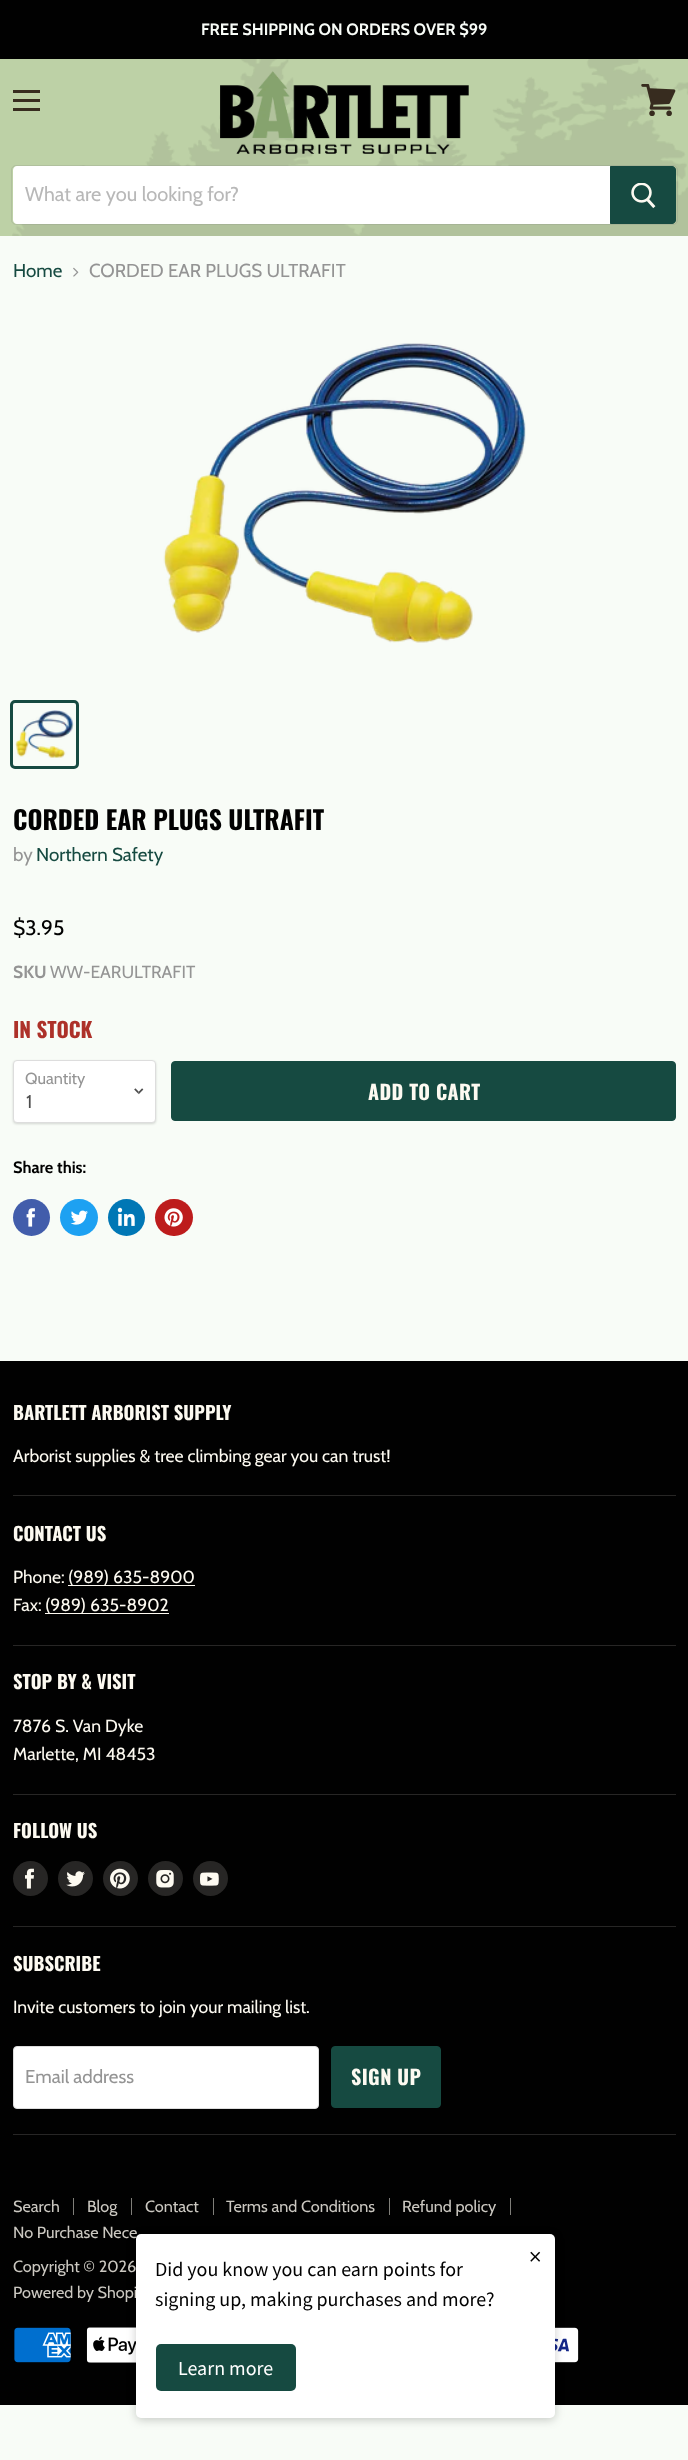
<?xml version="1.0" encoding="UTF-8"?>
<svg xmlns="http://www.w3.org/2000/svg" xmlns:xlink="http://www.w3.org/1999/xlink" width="688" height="2460">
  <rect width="100%" height="100%" fill="#f8fcf7" />
  <rect width="688" height="59" fill="#010101" />
  <rect y="59" width="688" height="177" fill="#bdd1a6" />
  <image x="12" y="59" width="676" height="177" xlink:href="image1.png" />
  <rect x="13" y="90" width="27" height="3" fill="#372c1f" />
  <rect x="13" y="99" width="27" height="3" fill="#372c1f" />
  <rect x="13" y="108" width="27" height="3" fill="#372c1f" />
  <image x="641" y="84" width="35" height="32" xlink:href="image2.png" />
  <image x="220" y="71" width="249" height="83" xlink:href="image3.png" />
  <rect x="11.5" y="165.5" width="666" height="59" rx="4.5" fill="none" stroke="#7c7e7b" stroke-opacity="0.2" />
  <path d="M 17 166 h 593 v 58 h -593 c -2 0 -4 -2 -4 -4 v -50 c 0 -2 2 -4 4 -4 z" fill="#ffffff" />
  <path d="M 610.5 166.5 h 61.5 c 2 0 3.5 1.5 3.5 3.5 v 50 c 0 2 -1.5 3.5 -3.5 3.5 h -61.5 z" fill="#164a41" stroke="#164a41" />
  <image x="631" y="183" width="25" height="26" xlink:href="image4.png" />
  <image x="73" y="267" width="6" height="10" xlink:href="image5.png" />
  <image x="163" y="343" width="363" height="300" xlink:href="image6.png" />
  <rect x="11.5" y="701.5" width="66" height="66" rx="3.5" fill="none" stroke="#164a41" stroke-width="3" />
  <image x="15" y="710" width="59" height="48" xlink:href="image7.png" />
  <rect x="13" y="1061" width="143" height="63" rx="4" fill="#000000" fill-opacity="0.15" filter="blur(1px)" />
  <rect x="13.5" y="1060.5" width="142" height="62" rx="3.5" fill="#ffffff" stroke="#dddddd" />
  <image x="134" y="1088" width="10" height="7" xlink:href="image8.png" />
  <rect x="171.5" y="1061.5" width="504" height="59" rx="3.5" fill="#164a41" stroke="#164a41" />
  <circle cx="31.5" cy="1217.5" r="18.5" fill="#425dab" />
  <image x="26" y="1208" width="9" height="19" xlink:href="image9.png" />
  <rect x="60" y="1199" width="38" height="37" rx="18.5" fill="#1da1f2" />
  <image x="70" y="1210" width="18" height="15" xlink:href="image10.png" />
  <circle cx="126.5" cy="1217.5" r="18.5" fill="#0077b5" />
  <image x="117" y="1207" width="18" height="19" xlink:href="image11.png" />
  <rect x="155" y="1199" width="38" height="37" rx="18.5" fill="#bd1c1c" />
  <image x="164" y="1208" width="19" height="19" xlink:href="image12.png" />
  <rect y="1361" width="688" height="1044" fill="#010101" />
  <rect x="13" y="1495" width="663" height="1" fill="#272625" />
  <rect x="13" y="1645" width="663" height="1" fill="#272625" />
  <rect x="68" y="1585" width="127" height="1" fill="#fdfaf1" />
  <rect x="45" y="1613" width="124" height="1" fill="#fdfaf1" />
  <rect x="13" y="1794" width="663" height="1" fill="#272625" />
  <rect x="13" y="1926" width="663" height="1" fill="#272625" />
  <circle cx="30.5" cy="1878.5" r="17.5" fill="#272625" />
  <image x="25" y="1868" width="9" height="21" xlink:href="image13.png" />
  <circle cx="75.5" cy="1878.5" r="17.5" fill="#272625" />
  <image x="66" y="1871" width="19" height="16" xlink:href="image14.png" />
  <circle cx="120.5" cy="1878.5" r="17.5" fill="#272625" />
  <image x="110" y="1868" width="20" height="21" xlink:href="image15.png" />
  <circle cx="165.5" cy="1878.5" r="17.5" fill="#272625" />
  <image x="156" y="1870" width="18" height="18" xlink:href="image16.png" />
  <circle cx="210.5" cy="1878.5" r="17.5" fill="#272625" />
  <image x="200" y="1872" width="19" height="14" xlink:href="image17.png" />
  <rect x="13" y="2134" width="663" height="1" fill="#272625" />
  <rect x="13.5" y="2046.5" width="305" height="62" rx="3.5" fill="#ffffff" stroke="#dddddd" />
  <rect x="331.5" y="2046.5" width="109" height="61" rx="3.5" fill="#164a41" stroke="#164a41" />
  <rect x="73" y="2198" width="1" height="17" fill="#7f7e79" />
  <rect x="131" y="2198" width="1" height="17" fill="#7f7e79" />
  <rect x="213" y="2198" width="1" height="17" fill="#7f7e79" />
  <rect x="389" y="2198" width="1" height="17" fill="#7f7e79" />
  <rect x="510" y="2198" width="1" height="17" fill="#7f7e79" />
  <image x="14" y="2327" width="57" height="36" xlink:href="image18.png" />
  <image x="86" y="2327" width="50" height="36" xlink:href="image19.png" />
  <image x="555" y="2327" width="24" height="36" xlink:href="image20.png" />
  <rect x="136" y="2236" width="419" height="184" rx="5" fill="#000000" fill-opacity="0.2" filter="blur(5px)" />
  <text x="201" y="35" style="font-family: Cabin; font-size: 16.4px; font-weight: bold; fill: #f8fcf7">FREE SHIPPING ON ORDERS OVER $99</text>
  <text x="25" y="201" style="font-family: Cabin; font-size: 20px; fill: #b8b8b8">What are you looking for?</text>
  <text x="13" y="277" style="font-family: Cabin; font-size: 18.75px; fill: #164a41">Home</text>
  <text x="89" y="277" style="font-family: Cabin; font-size: 18.75px; fill: #949494">CORDED EAR PLUGS ULTRAFIT</text>
  <text x="13" y="830" style="font-family: Oswald; font-size: 25.6px; font-weight: bold; fill: #010101">CORDED EAR PLUGS ULTRAFIT</text>
  <text x="13" y="861" style="font-family: Cabin; font-size: 18.75px; fill: #949494">by</text>
  <text x="36" y="861" style="font-family: Cabin; font-size: 18.75px; fill: #164a41">Northern Safety</text>
  <text x="13" y="935" style="font-family: Cabin; font-size: 21px; fill: #010101">$3.95</text>
  <text x="13" y="978" style="font-family: Cabin; font-size: 17.5px; font-weight: bold; fill: #949494">SKU</text>
  <text x="50" y="978" style="font-family: Cabin; font-size: 17.5px; fill: #949494">WW-EARULTRAFIT</text>
  <text x="13" y="1038" style="font-family: Oswald; font-size: 21px; font-weight: bold; fill: #ad3129">IN STOCK</text>
  <text x="25" y="1084" style="font-family: Cabin; font-size: 16.25px; fill: #949494">Quantity</text>
  <text x="26" y="1108" style="font-family: Cabin; font-size: 18.75px; fill: #4d4d4d">1</text>
  <text x="368" y="1100" style="font-family: Oswald; font-size: 20px; font-weight: bold; letter-spacing: 0.4px; fill: #fdfaf1">ADD TO CART</text>
  <text x="13" y="1173" style="font-family: Cabin; font-size: 16.4px; font-weight: bold; fill: #010101">Share this:</text>
  <text x="13" y="1420" style="font-family: Oswald; font-size: 18.6px; font-weight: bold; fill: #fdfaf1">BARTLETT ARBORIST SUPPLY</text>
  <text x="13" y="1462" style="font-family: Cabin; font-size: 17.6px; fill: #fdfaf1">Arborist supplies &amp; tree climbing gear you can trust!</text>
  <text x="13" y="1541" style="font-family: Oswald; font-size: 18.6px; font-weight: bold; fill: #fdfaf1">CONTACT US</text>
  <text x="13" y="1583" style="font-family: Cabin; font-size: 17.6px; fill: #fdfaf1">Phone:</text>
  <text x="68" y="1583" style="font-family: Cabin; font-size: 17.6px; fill: #fdfaf1">(989) 635-8900</text>
  <text x="13" y="1611" style="font-family: Cabin; font-size: 17.6px; fill: #fdfaf1">Fax:</text>
  <text x="45" y="1611" style="font-family: Cabin; font-size: 17.6px; fill: #fdfaf1">(989) 635-8902</text>
  <text x="13" y="1689" style="font-family: Oswald; font-size: 18.6px; font-weight: bold; fill: #fdfaf1">STOP BY &amp; VISIT</text>
  <text x="13" y="1732" style="font-family: Cabin; font-size: 17.6px; fill: #fdfaf1">7876 S. Van Dyke</text>
  <text x="13" y="1760" style="font-family: Cabin; font-size: 17.6px; fill: #fdfaf1">Marlette, MI 48453</text>
  <text x="13" y="1838" style="font-family: Oswald; font-size: 18.6px; font-weight: bold; fill: #fdfaf1">FOLLOW US</text>
  <text x="13" y="1971" style="font-family: Oswald; font-size: 18.6px; font-weight: bold; fill: #fdfaf1">SUBSCRIBE</text>
  <text x="13" y="2013" style="font-family: Cabin; font-size: 17.6px; fill: #fdfaf1">Invite customers to join your mailing list.</text>
  <text x="25" y="2083" style="font-family: Cabin; font-size: 18.75px; fill: #949494">Email address</text>
  <text x="351" y="2085" style="font-family: Oswald; font-size: 20px; font-weight: bold; letter-spacing: 0.4px; fill: #fdfaf1">SIGN UP</text>
  <text x="13" y="2212" style="font-family: Cabin; font-size: 16.25px; fill: #cbc8c1">Search</text>
  <text x="87" y="2212" style="font-family: Cabin; font-size: 16.25px; fill: #cbc8c1">Blog</text>
  <text x="145" y="2212" style="font-family: Cabin; font-size: 16.25px; fill: #cbc8c1">Contact</text>
  <text x="226" y="2212" style="font-family: Cabin; font-size: 16.25px; fill: #cbc8c1">Terms and Conditions</text>
  <text x="402" y="2212" style="font-family: Cabin; font-size: 16.25px; fill: #cbc8c1">Refund policy</text>
  <text x="13" y="2238" style="font-family: Cabin; font-size: 16.25px; fill: #cbc8c1">No Purchase Nece</text>
  <text x="13" y="2272" style="font-family: Cabin; font-size: 16.25px; fill: #cbc8c1">Copyright © 2026</text>
  <text x="13" y="2298" style="font-family: Cabin; font-size: 16.25px; fill: #cbc8c1">Powered by Shopi</text>
  <rect x="136" y="2234" width="419" height="184" rx="5" fill="#ffffff" />
  <text x="529" y="2265" style="font-family: Source Sans Pro; font-size: 25px; fill: #010101">×</text>
  <text x="155" y="2276" style="font-family: Source Sans Pro; font-size: 20px; fill: #010101">Did you know you can earn points for</text>
  <text x="155" y="2306" style="font-family: Source Sans Pro; font-size: 20px; fill: #010101">signing up, making purchases and more?</text>
  <rect x="156" y="2344" width="140" height="47" rx="5" fill="#164a41" />
  <text x="178" y="2375" style="font-family: Source Sans Pro; font-size: 20px; fill: #ffffff">Learn more</text>
</svg>
